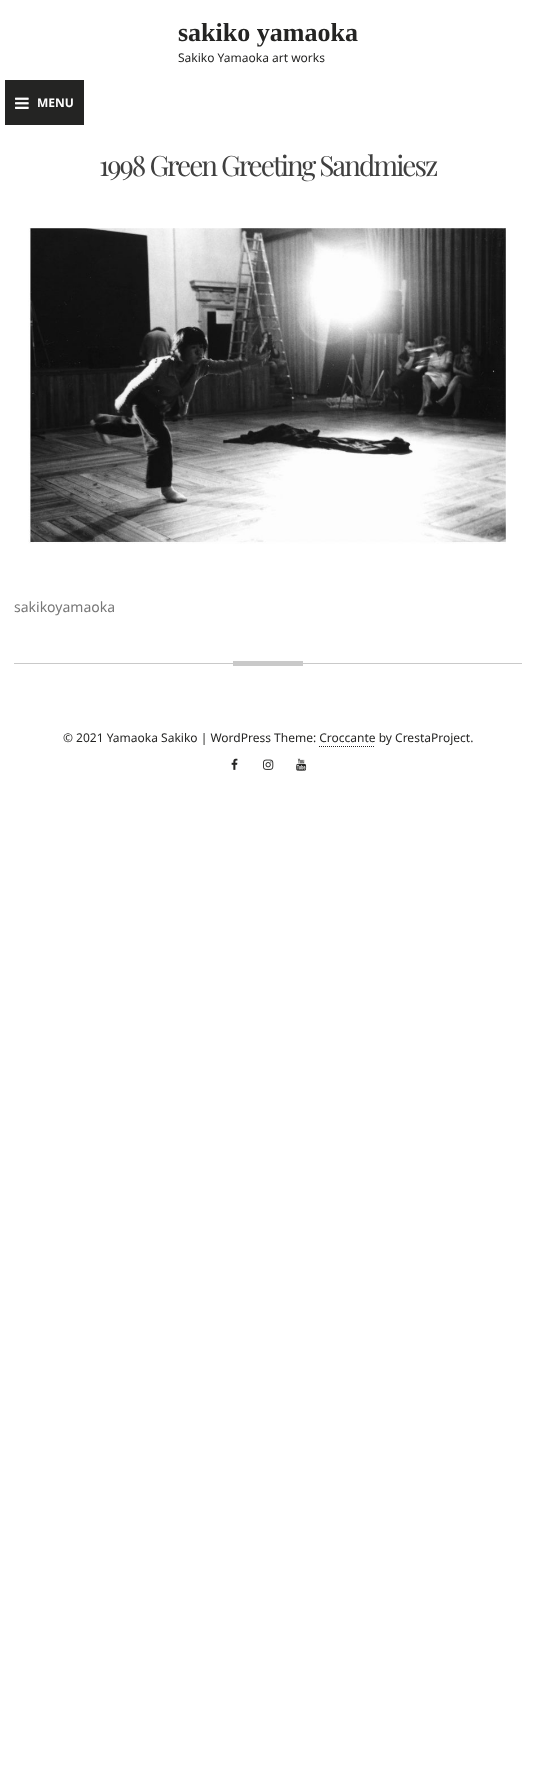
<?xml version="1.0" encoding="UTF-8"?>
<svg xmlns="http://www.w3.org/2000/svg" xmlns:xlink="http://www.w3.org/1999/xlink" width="536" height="1783">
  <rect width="100%" height="100%" fill="#ffffff" />
  <rect x="5" y="80" width="79" height="45" fill="#242423" />
  <image x="15" y="97" width="14" height="12" xlink:href="image1.png" />
  <rect x="14" y="663" width="508" height="1" fill="#c9c9c9" />
  <image x="28" y="228" width="478" height="316" xlink:href="image2.png" />
  <rect x="233" y="661" width="70" height="5" fill="#c9c9c9" />
  <path d="M 319 746.5 h 56" fill="none" stroke="#242423" stroke-dasharray="1 1" />
  <image x="231" y="758" width="7" height="12" xlink:href="image3.png" />
  <image x="263" y="759" width="11" height="11" xlink:href="image4.png" />
  <image x="296" y="758" width="11" height="13" xlink:href="image5.png" />
  <text x="178" y="41" style="font-family: Liberation Serif; font-size: 26px; font-weight: bold; fill: #242423">sakiko yamaoka</text>
  <text x="178" y="62" style="font-family: Noto Sans; font-size: 12px; fill: #242423">Sakiko Yamaoka art works</text>
  <text x="37" y="107" style="font-family: Noto Sans; font-size: 12px; font-weight: bold; fill: #ffffff">MENU</text>
  <text x="99" y="176" style="font-family: Playfair Display; font-size: 28px; letter-spacing: -2px; fill: #404040">1998 Green Greeting Sandmiesz</text>
  <text x="14" y="612" style="font-family: Noto Sans; font-size: 14px; fill: #777777">sakikoyamaoka</text>
  <text x="63" y="742" style="font-family: Noto Sans; font-size: 12px; fill: #242423">© 2021 Yamaoka Sakiko | WordPress Theme: Croccante by CrestaProject.</text>
</svg>
